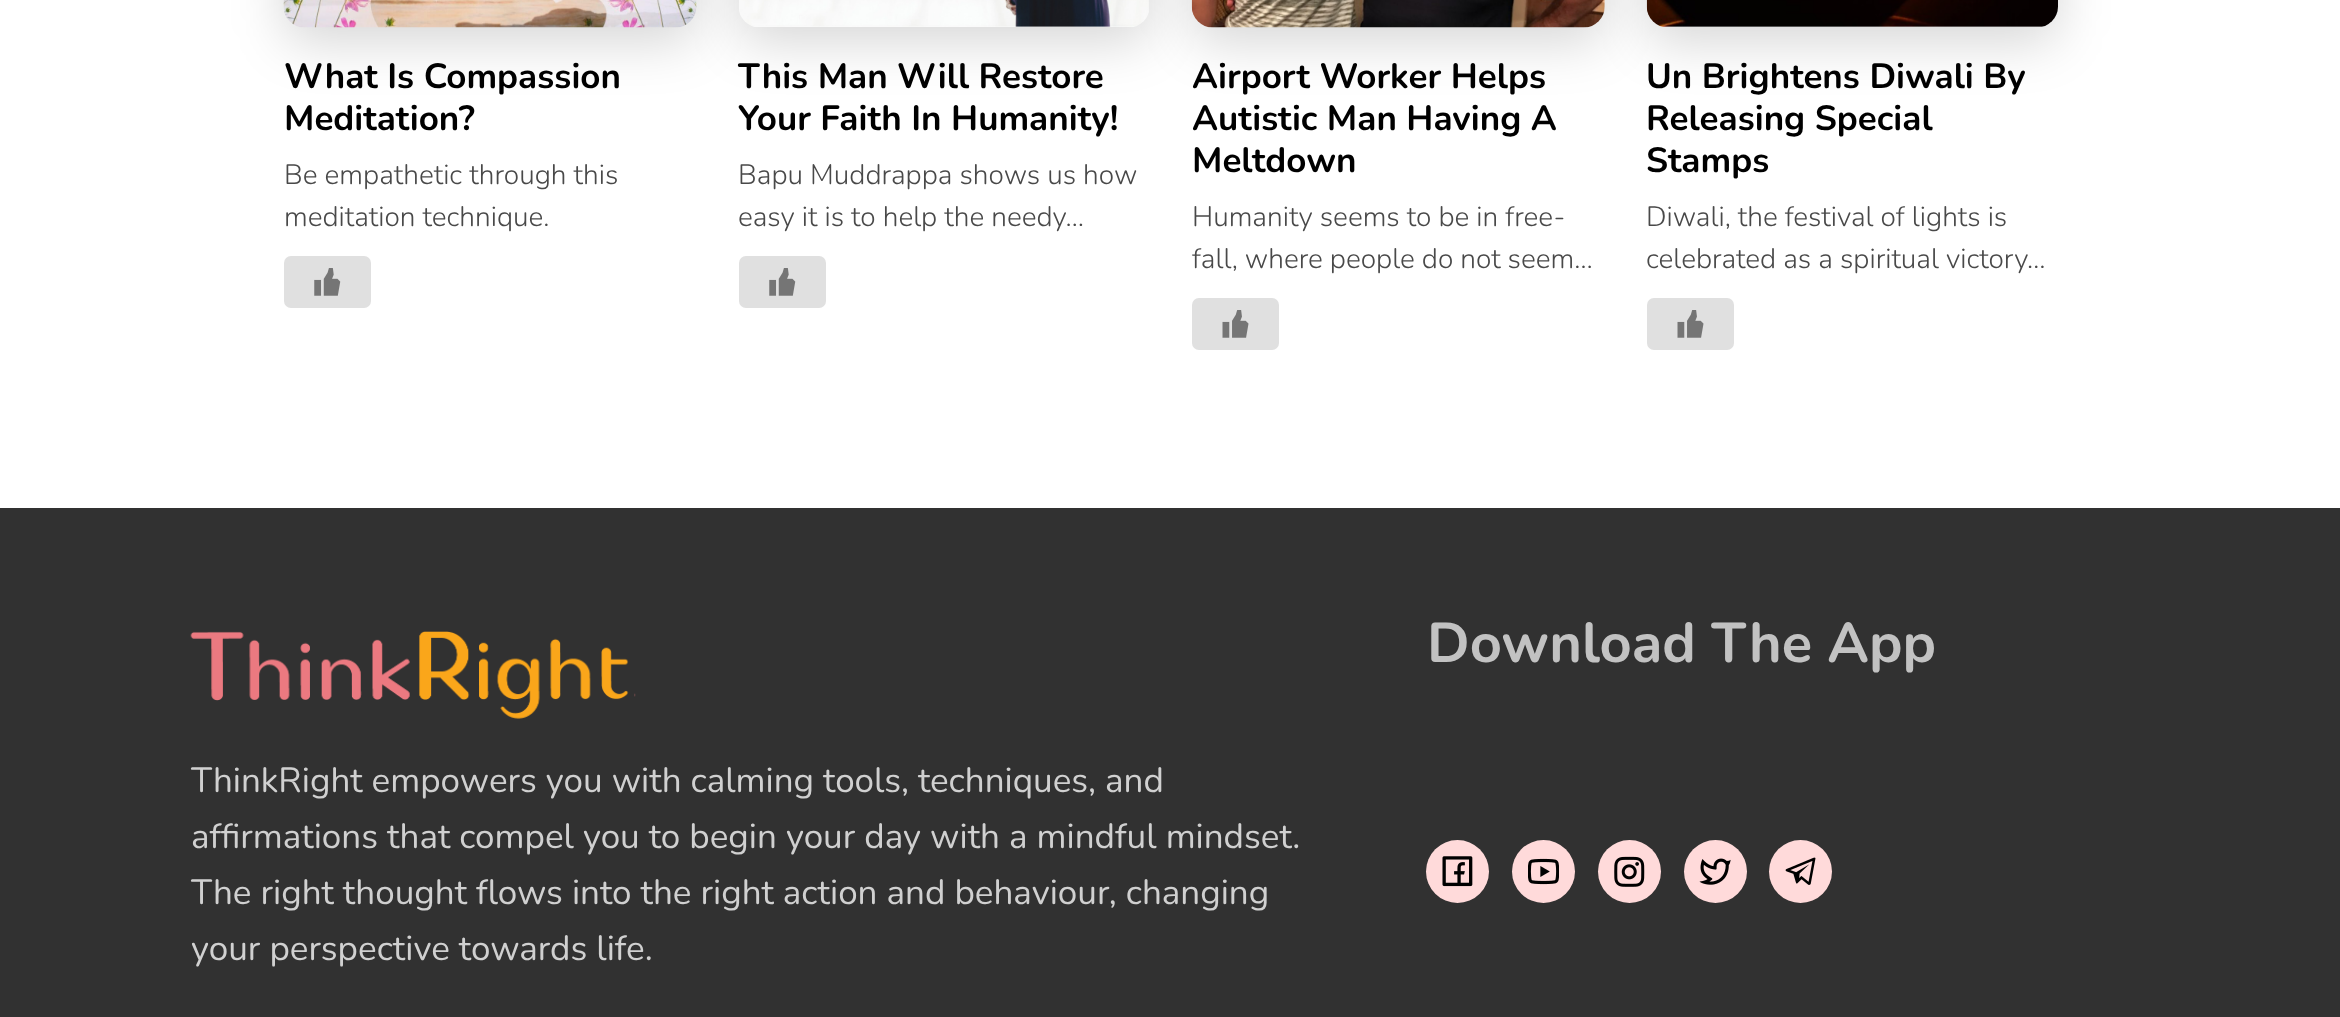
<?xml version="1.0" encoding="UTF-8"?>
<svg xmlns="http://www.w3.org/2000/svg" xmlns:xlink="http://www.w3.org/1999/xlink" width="2340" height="1017">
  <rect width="100%" height="100%" fill="#ffffff" />
  <rect x="284" y="-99" width="413" height="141" rx="21" fill="#000000" fill-opacity="0.16" filter="blur(26px)" />
  <image x="283" y="0" width="414" height="28" xlink:href="image1.png" />
  <rect x="284" y="256" width="87" height="52" rx="7" fill="#e0e0e0" />
  <image x="314" y="268" width="27" height="28" xlink:href="image2.png" />
  <rect x="739" y="-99" width="411" height="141" rx="21" fill="#000000" fill-opacity="0.16" filter="blur(26px)" />
  <image x="739" y="0" width="410" height="27" xlink:href="image3.png" />
  <rect x="739" y="256" width="87" height="52" rx="7" fill="#e0e0e0" />
  <image x="769" y="268" width="27" height="28" xlink:href="image2.png" />
  <rect x="1192" y="-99" width="413" height="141" rx="21" fill="#000000" fill-opacity="0.16" filter="blur(26px)" />
  <image x="1191" y="0" width="414" height="28" xlink:href="image4.png" />
  <rect x="1192" y="298" width="87" height="52" rx="7" fill="#e0e0e0" />
  <image x="1222" y="310" width="27" height="28" xlink:href="image5.png" />
  <rect x="1647" y="-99" width="411" height="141" rx="21" fill="#000000" fill-opacity="0.16" filter="blur(26px)" />
  <image x="1646" y="0" width="412" height="27" xlink:href="image6.png" />
  <rect x="1647" y="298" width="87" height="52" rx="7" fill="#e0e0e0" />
  <image x="1677" y="310" width="27" height="28" xlink:href="image5.png" />
  <rect y="508" width="2340" height="509" fill="#313131" />
  <circle cx="1457.5" cy="871.5" r="31.5" fill="#ffdada" />
  <image x="1442" y="856" width="31" height="31" xlink:href="image7.png" />
  <circle cx="1543.5" cy="871.5" r="31.5" fill="#ffdada" />
  <image x="1528" y="858" width="31" height="27" xlink:href="image8.png" />
  <circle cx="1629.5" cy="871.5" r="31.5" fill="#ffdada" />
  <image x="1614" y="856" width="31" height="31" xlink:href="image9.png" />
  <circle cx="1715.5" cy="871.5" r="31.5" fill="#ffdada" />
  <image x="1699" y="858" width="32" height="27" xlink:href="image10.png" />
  <circle cx="1800.5" cy="871.5" r="31.5" fill="#ffdada" />
  <image x="1785" y="857" width="31" height="28" xlink:href="image11.png" />
  <image x="190" y="631" width="446" height="88" xlink:href="image12.png" />
  <text x="284" y="88" style="font-family: Nunito; font-size: 35px; font-weight: bold; fill: #000000">What Is Compassion</text>
  <text x="284" y="130" style="font-family: Nunito; font-size: 35px; font-weight: bold; fill: #000000">Meditation?</text>
  <text x="284" y="184" style="font-family: Nunito; font-size: 28px; font-weight: 300; fill: #494949">Be empathetic through this</text>
  <text x="284" y="226" style="font-family: Nunito; font-size: 28px; font-weight: 300; fill: #494949">meditation technique.</text>
  <text x="738" y="88" style="font-family: Nunito; font-size: 35px; font-weight: bold; fill: #000000">This Man Will Restore</text>
  <text x="738" y="130" style="font-family: Nunito; font-size: 35px; font-weight: bold; fill: #000000">Your Faith In Humanity!</text>
  <text x="738" y="184" style="font-family: Nunito; font-size: 28px; font-weight: 300; fill: #494949">Bapu Muddrappa shows us how</text>
  <text x="738" y="226" style="font-family: Nunito; font-size: 28px; font-weight: 300; fill: #494949">easy it is to help the needy…</text>
  <text x="1192" y="88" style="font-family: Nunito; font-size: 35px; font-weight: bold; fill: #000000">Airport Worker Helps</text>
  <text x="1192" y="130" style="font-family: Nunito; font-size: 35px; font-weight: bold; fill: #000000">Autistic Man Having A</text>
  <text x="1192" y="172" style="font-family: Nunito; font-size: 35px; font-weight: bold; fill: #000000">Meltdown</text>
  <text x="1192" y="226" style="font-family: Nunito; font-size: 28px; font-weight: 300; fill: #494949">Humanity seems to be in free-</text>
  <text x="1192" y="268" style="font-family: Nunito; font-size: 28px; font-weight: 300; fill: #494949">fall, where people do not seem…</text>
  <text x="1646" y="88" style="font-family: Nunito; font-size: 35px; font-weight: bold; fill: #000000">Un Brightens Diwali By</text>
  <text x="1646" y="130" style="font-family: Nunito; font-size: 35px; font-weight: bold; fill: #000000">Releasing Special</text>
  <text x="1646" y="172" style="font-family: Nunito; font-size: 35px; font-weight: bold; fill: #000000">Stamps</text>
  <text x="1646" y="226" style="font-family: Nunito; font-size: 28px; font-weight: 300; fill: #494949">Diwali, the festival of lights is</text>
  <text x="1646" y="268" style="font-family: Nunito; font-size: 28px; font-weight: 300; fill: #494949">celebrated as a spiritual victory…</text>
  <text x="1427" y="662" style="font-family: Nunito; font-size: 56px; font-weight: bold; fill: #c2c2c2">Download The App</text>
  <text x="191" y="792" style="font-family: Nunito; font-size: 35px; fill: #d0d0d0">ThinkRight empowers you with calming tools, techniques, and</text>
  <text x="191" y="848" style="font-family: Nunito; font-size: 35px; fill: #d0d0d0">affirmations that compel you to begin your day with a mindful mindset.</text>
  <text x="191" y="904" style="font-family: Nunito; font-size: 35px; fill: #d0d0d0">The right thought flows into the right action and behaviour, changing</text>
  <text x="191" y="960" style="font-family: Nunito; font-size: 35px; fill: #d0d0d0">your perspective towards life.</text>
</svg>
